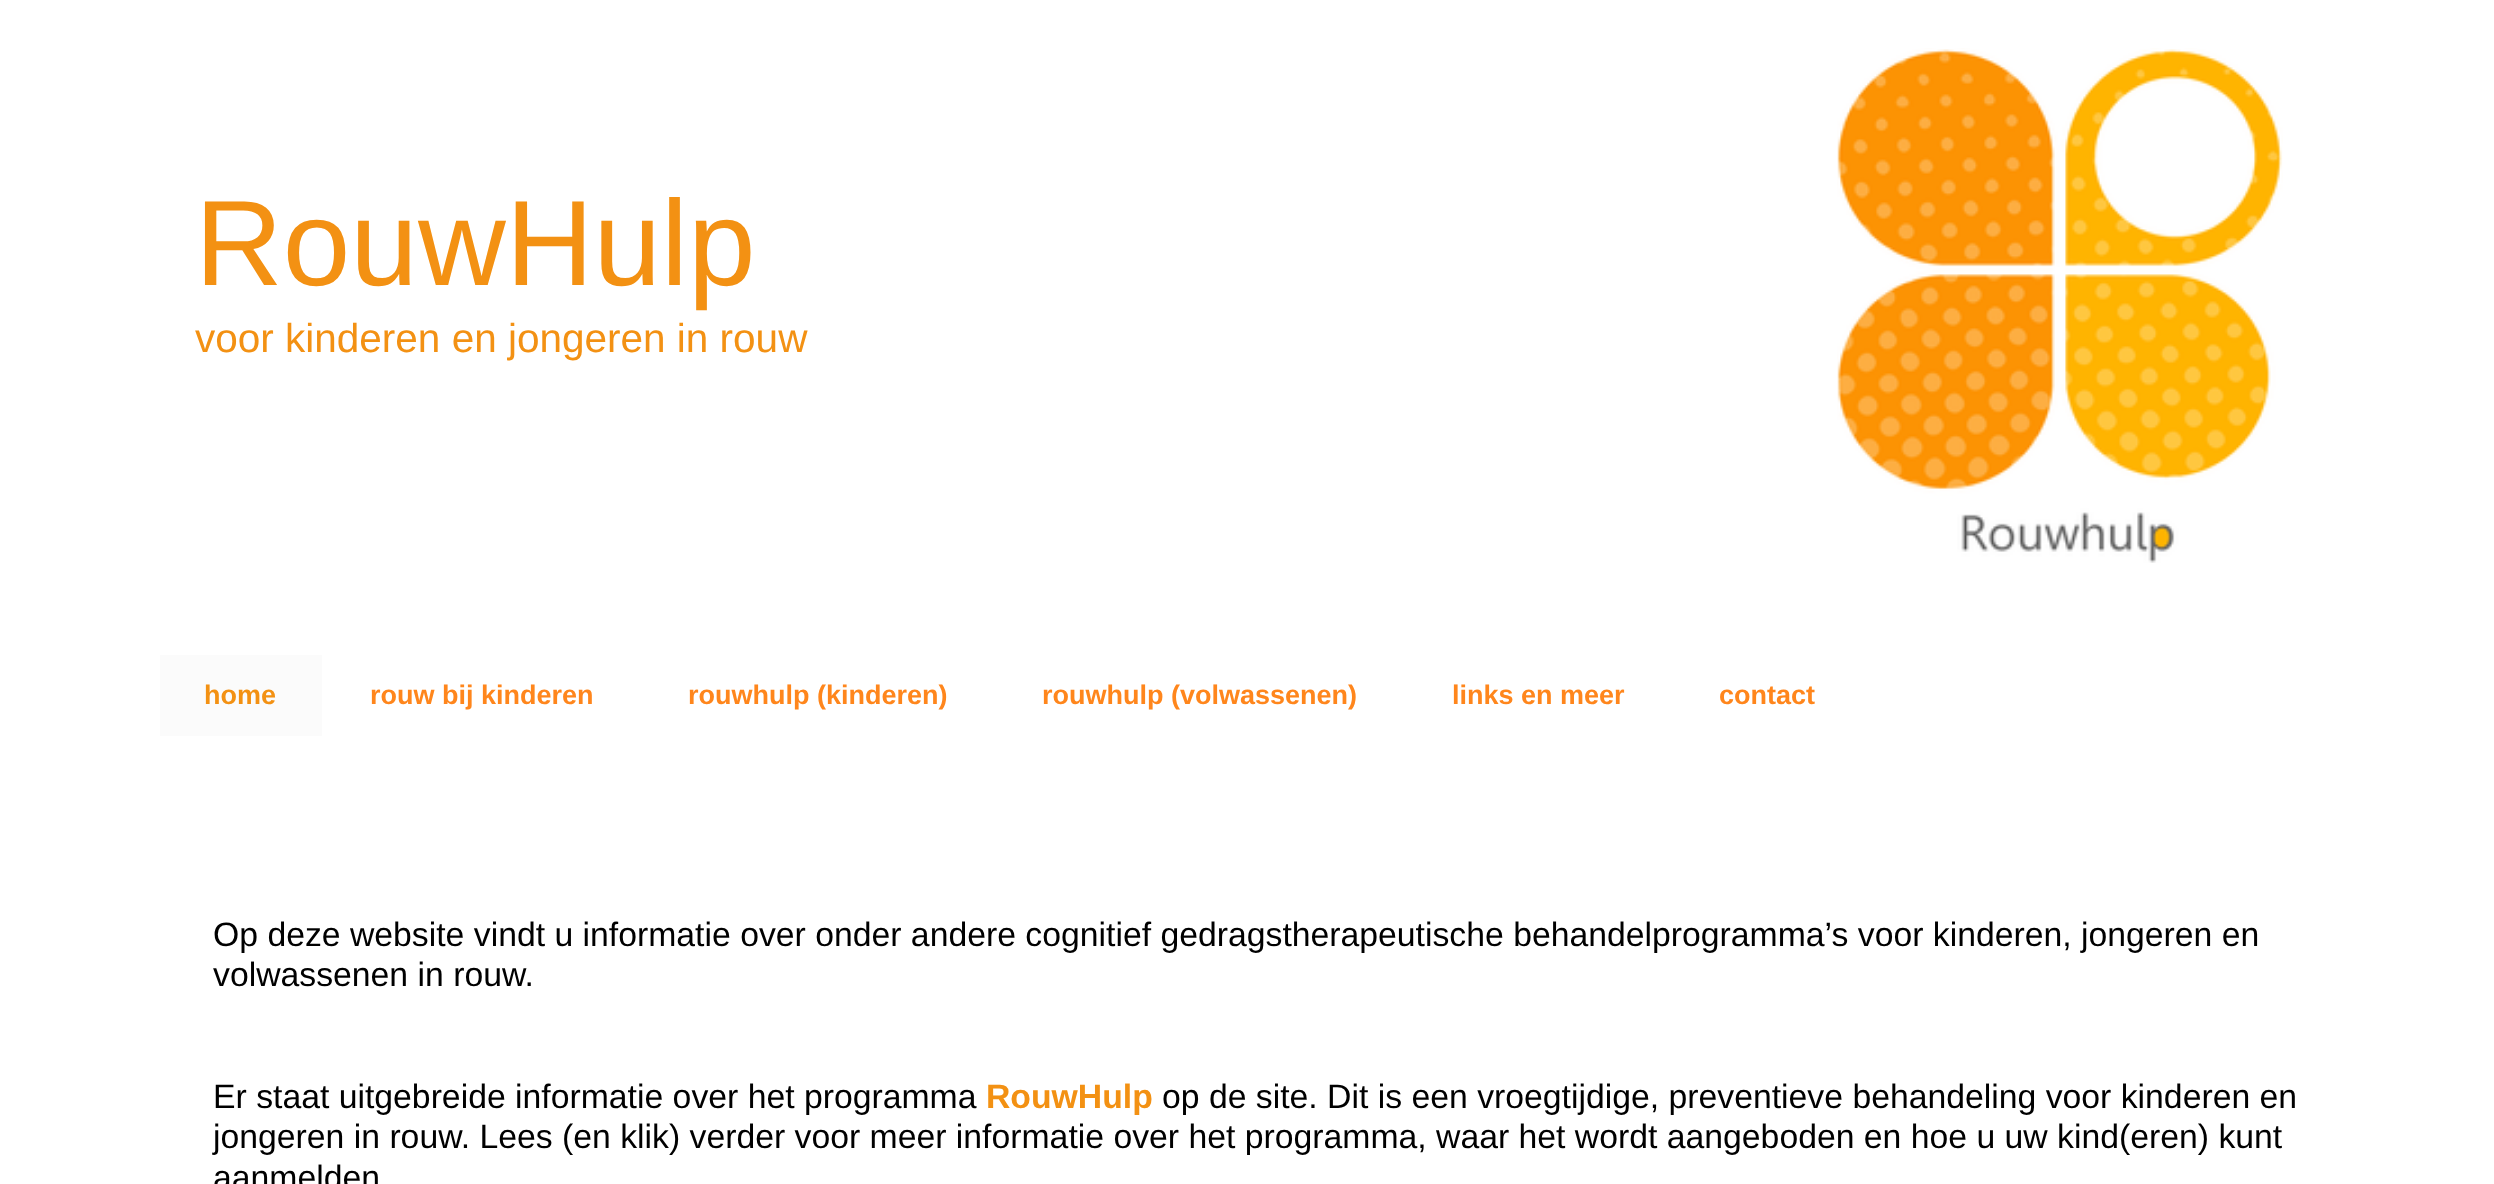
<?xml version="1.0" encoding="UTF-8"?>
<svg xmlns="http://www.w3.org/2000/svg" xmlns:xlink="http://www.w3.org/1999/xlink" width="2494" height="1184">
  <rect width="100%" height="100%" fill="#ffffff" />
  <image x="1837" y="48" width="446" height="515" xlink:href="image1.png" />
  <rect x="160" y="655" width="162" height="81" fill="#fbfbfb" />
  <text x="195" y="285" style="font-family: Liberation Sans; font-size: 121.5px; fill: #f39113">RouwHulp</text>
  <text x="195" y="352" style="font-family: Liberation Sans; font-size: 40.5px; fill: #f39113">voor kinderen en jongeren in rouw</text>
  <text x="204" y="704" style="font-family: Liberation Sans; font-size: 27px; font-weight: bold; fill: #f39113">home</text>
  <text x="370" y="704" style="font-family: Liberation Sans; font-size: 27px; font-weight: bold; fill: #ff861c">rouw bij kinderen</text>
  <text x="688" y="704" style="font-family: Liberation Sans; font-size: 27px; font-weight: bold; fill: #ff861c">rouwhulp (kinderen)</text>
  <text x="1042" y="704" style="font-family: Liberation Sans; font-size: 27px; font-weight: bold; fill: #ff861c">rouwhulp (volwassenen)</text>
  <text x="1452" y="704" style="font-family: Liberation Sans; font-size: 27px; font-weight: bold; fill: #ff861c">links en meer</text>
  <text x="1719" y="704" style="font-family: Liberation Sans; font-size: 27px; font-weight: bold; fill: #ff861c">contact</text>
  <text x="213" y="946" style="font-family: Liberation Sans; font-size: 33.75px; fill: #000000">Op deze website vindt u informatie over onder andere cognitief gedragstherapeutische behandelprogramma’s voor kinderen, jongeren en</text>
  <text x="213" y="986" style="font-family: Liberation Sans; font-size: 33.75px; fill: #000000">volwassenen in rouw.</text>
  <text x="213" y="1108" style="font-family: Liberation Sans; font-size: 33.75px; fill: #000000">Er staat uitgebreide informatie over het programma</text>
  <text x="986" y="1108" style="font-family: Liberation Sans; font-size: 33.75px; font-weight: bold; fill: #f39113">RouwHulp</text>
  <text x="1162" y="1108" style="font-family: Liberation Sans; font-size: 33.75px; fill: #000000">op de site. Dit is een vroegtijdige, preventieve behandeling voor kinderen en</text>
  <text x="213" y="1148" style="font-family: Liberation Sans; font-size: 33.75px; fill: #000000">jongeren in rouw. Lees (en klik) verder voor meer informatie over het programma, waar het wordt aangeboden en hoe u uw kind(eren) kunt</text>
  <text x="213" y="1189" style="font-family: Liberation Sans; font-size: 33.75px; fill: #000000">aanmelden</text>
</svg>
